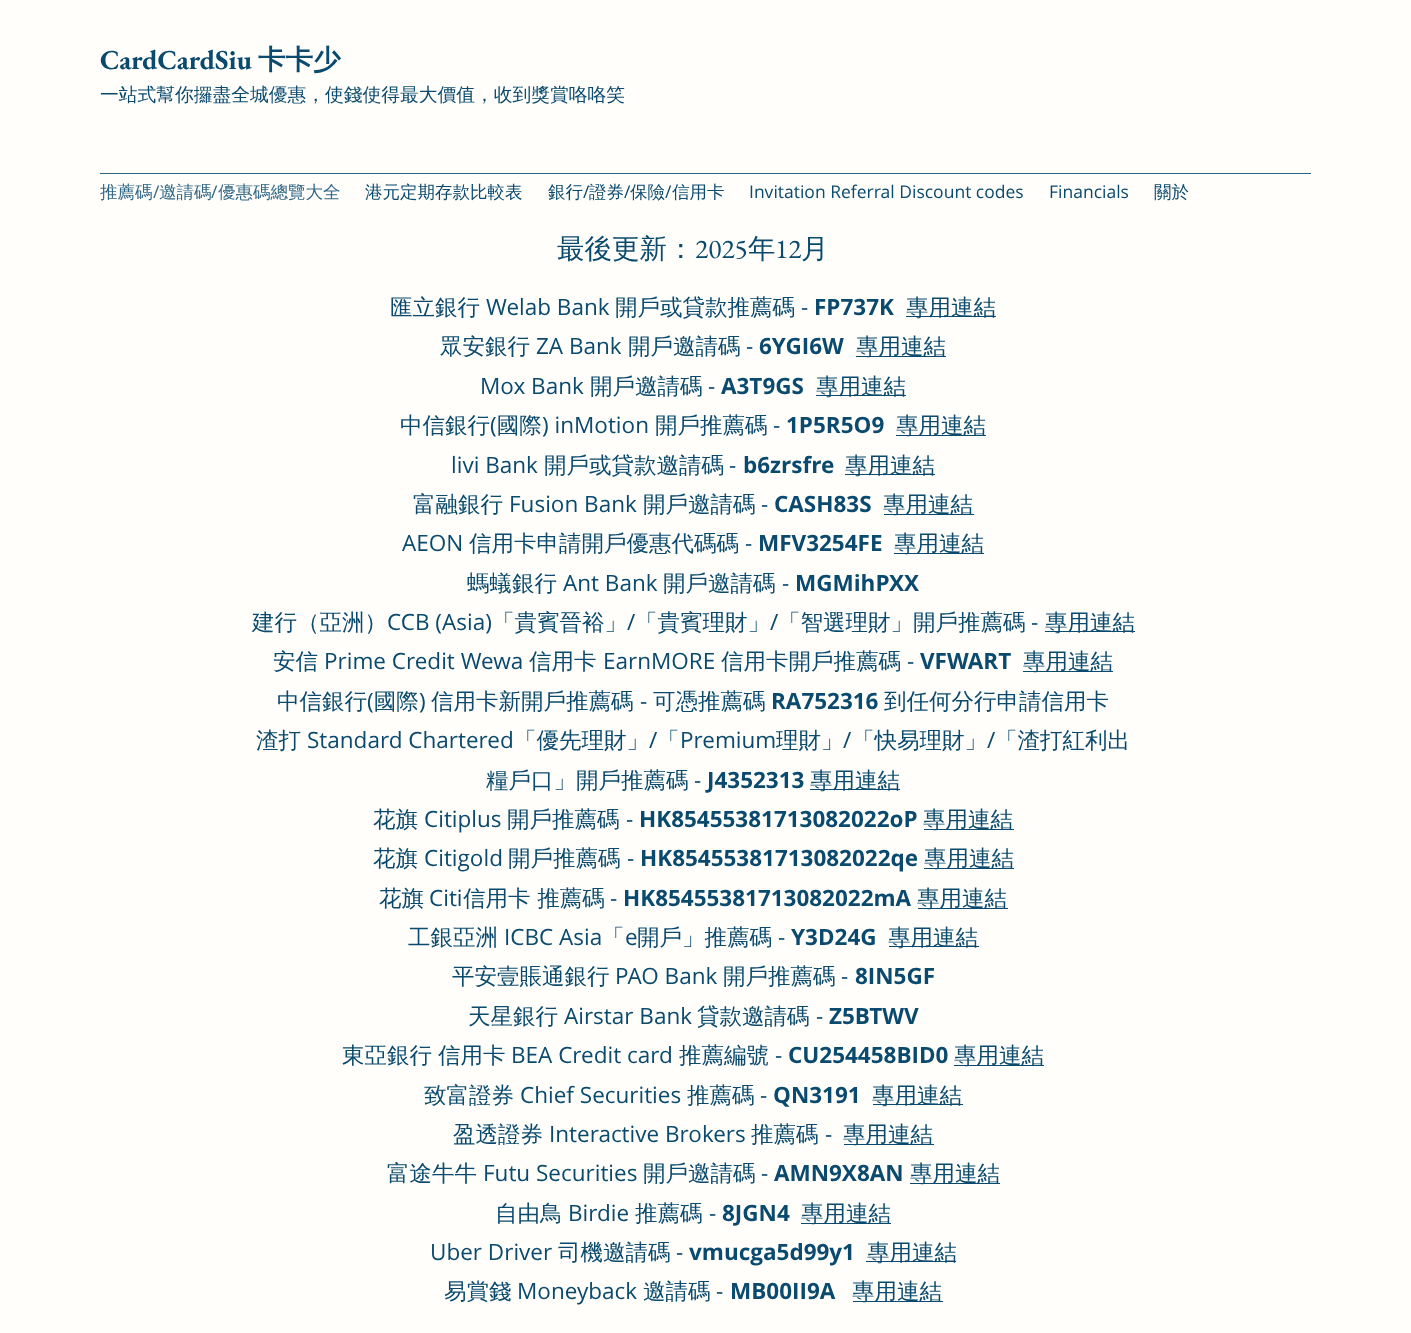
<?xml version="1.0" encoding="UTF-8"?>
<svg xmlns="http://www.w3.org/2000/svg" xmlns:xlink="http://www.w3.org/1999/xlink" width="1411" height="1333">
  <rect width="100%" height="100%" fill="#fffefa" />
  <rect x="100" y="173" width="1211" height="1" fill="#2f6583" />
  <rect x="906" y="316" width="90" height="1" fill="#0a4a6e" />
  <rect x="856" y="356" width="90" height="1" fill="#0a4a6e" />
  <rect x="816" y="395" width="90" height="1" fill="#0a4a6e" />
  <rect x="896" y="435" width="90" height="1" fill="#0a4a6e" />
  <rect x="845" y="474" width="90" height="1" fill="#0a4a6e" />
  <rect x="884" y="514" width="90" height="1" fill="#0a4a6e" />
  <rect x="894" y="553" width="90" height="1" fill="#0a4a6e" />
  <rect x="1045" y="631" width="90" height="1" fill="#0a4a6e" />
  <rect x="1023" y="671" width="90" height="1" fill="#0a4a6e" />
  <rect x="810" y="789" width="90" height="1" fill="#0a4a6e" />
  <rect x="924" y="829" width="90" height="1" fill="#0a4a6e" />
  <rect x="924" y="868" width="90" height="1" fill="#0a4a6e" />
  <rect x="918" y="908" width="90" height="1" fill="#0a4a6e" />
  <rect x="889" y="946" width="90" height="1" fill="#0a4a6e" />
  <rect x="954" y="1065" width="90" height="1" fill="#0a4a6e" />
  <rect x="873" y="1104" width="90" height="1" fill="#0a4a6e" />
  <rect x="844" y="1144" width="90" height="1" fill="#0a4a6e" />
  <rect x="910" y="1183" width="90" height="1" fill="#0a4a6e" />
  <rect x="801" y="1223" width="90" height="1" fill="#0a4a6e" />
  <rect x="866" y="1261" width="90" height="1" fill="#0a4a6e" />
  <rect x="853" y="1301" width="90" height="1" fill="#0a4a6e" />
  <text x="100" y="69" style="font-family: EB Garamond; font-size: 27.5px; font-weight: bold; fill: #0a4a6e">CardCardSiu</text>
  <text x="258" y="69" style="font-family: WenQuanYi Zen Hei; font-size: 27.5px; font-weight: bold; fill: #0a4a6e">卡卡少</text>
  <text x="100" y="101" style="font-family: WenQuanYi Zen Hei; font-size: 18.75px; font-weight: 500; fill: #0a4a6e">一站式幫你攞盡全城優惠，使錢使得最大價值，收到獎賞咯咯笑</text>
  <text x="100" y="198" style="font-family: WenQuanYi Zen Hei; font-size: 17.5px; font-weight: 500; fill: #326887">推薦碼</text>
  <text x="153" y="198" style="font-family: Open Sans; font-size: 17.5px; fill: #326887">/</text>
  <text x="159" y="198" style="font-family: WenQuanYi Zen Hei; font-size: 17.5px; font-weight: 500; fill: #326887">邀請碼</text>
  <text x="211" y="198" style="font-family: Open Sans; font-size: 17.5px; fill: #326887">/</text>
  <text x="218" y="198" style="font-family: WenQuanYi Zen Hei; font-size: 17.5px; font-weight: 500; fill: #326887">優惠碼總覽大全</text>
  <text x="365" y="198" style="font-family: WenQuanYi Zen Hei; font-size: 17.5px; font-weight: 500; fill: #0a4a6e">港元定期存款比較表</text>
  <text x="548" y="198" style="font-family: WenQuanYi Zen Hei; font-size: 17.5px; font-weight: 500; fill: #0a4a6e">銀行</text>
  <text x="583" y="198" style="font-family: Open Sans; font-size: 17.5px; fill: #0a4a6e">/</text>
  <text x="589" y="198" style="font-family: WenQuanYi Zen Hei; font-size: 17.5px; font-weight: 500; fill: #0a4a6e">證券</text>
  <text x="624" y="198" style="font-family: Open Sans; font-size: 17.5px; fill: #0a4a6e">/</text>
  <text x="630" y="198" style="font-family: WenQuanYi Zen Hei; font-size: 17.5px; font-weight: 500; fill: #0a4a6e">保險</text>
  <text x="665" y="198" style="font-family: Open Sans; font-size: 17.5px; fill: #0a4a6e">/</text>
  <text x="672" y="198" style="font-family: WenQuanYi Zen Hei; font-size: 17.5px; font-weight: 500; fill: #0a4a6e">信用卡</text>
  <text x="749" y="198" style="font-family: Open Sans; font-size: 17.5px; fill: #0a4a6e">Invitation Referral Discount codes</text>
  <text x="1049" y="198" style="font-family: Open Sans; font-size: 17.5px; fill: #0a4a6e">Financials</text>
  <text x="1154" y="198" style="font-family: WenQuanYi Zen Hei; font-size: 17.5px; font-weight: 500; fill: #0a4a6e">關於</text>
  <text x="557" y="258" style="font-family: WenQuanYi Zen Hei; font-size: 27.5px; font-weight: 500; fill: #0a4a6e">最後更新：</text>
  <text x="695" y="258" style="font-family: EB Garamond; font-size: 27.5px; fill: #0a4a6e">2025</text>
  <text x="748" y="258" style="font-family: WenQuanYi Zen Hei; font-size: 27.5px; font-weight: 500; fill: #0a4a6e">年</text>
  <text x="775" y="258" style="font-family: EB Garamond; font-size: 27.5px; fill: #0a4a6e">12</text>
  <text x="801" y="258" style="font-family: WenQuanYi Zen Hei; font-size: 27.5px; font-weight: 500; fill: #0a4a6e">月</text>
  <text x="390" y="315" style="font-family: WenQuanYi Zen Hei; font-size: 22.5px; font-weight: 500; fill: #0a4a6e">匯立銀行</text>
  <text x="486" y="315" style="font-family: Open Sans; font-size: 22.5px; fill: #0a4a6e">Welab Bank</text>
  <text x="615" y="315" style="font-family: WenQuanYi Zen Hei; font-size: 22.5px; font-weight: 500; fill: #0a4a6e">開戶或貸款推薦碼</text>
  <text x="801" y="315" style="font-family: Open Sans; font-size: 22.5px; fill: #0a4a6e">-</text>
  <text x="814" y="315" style="font-family: Open Sans; font-size: 22.5px; font-weight: bold; fill: #0a4a6e">FP737K</text>
  <text x="906" y="315" style="font-family: WenQuanYi Zen Hei; font-size: 22.5px; font-weight: 500; fill: #0a4a6e">專用連結</text>
  <text x="440" y="354" style="font-family: WenQuanYi Zen Hei; font-size: 22.5px; font-weight: 500; fill: #0a4a6e">眾安銀行</text>
  <text x="536" y="354" style="font-family: Open Sans; font-size: 22.5px; fill: #0a4a6e">ZA Bank</text>
  <text x="628" y="354" style="font-family: WenQuanYi Zen Hei; font-size: 22.5px; font-weight: 500; fill: #0a4a6e">開戶邀請碼</text>
  <text x="746" y="354" style="font-family: Open Sans; font-size: 22.5px; fill: #0a4a6e">-</text>
  <text x="759" y="354" style="font-family: Open Sans; font-size: 22.5px; font-weight: bold; fill: #0a4a6e">6YGI6W</text>
  <text x="856" y="354" style="font-family: WenQuanYi Zen Hei; font-size: 22.5px; font-weight: 500; fill: #0a4a6e">專用連結</text>
  <text x="480" y="394" style="font-family: Open Sans; font-size: 22.5px; fill: #0a4a6e">Mox Bank</text>
  <text x="590" y="394" style="font-family: WenQuanYi Zen Hei; font-size: 22.5px; font-weight: 500; fill: #0a4a6e">開戶邀請碼</text>
  <text x="708" y="394" style="font-family: Open Sans; font-size: 22.5px; fill: #0a4a6e">-</text>
  <text x="721" y="394" style="font-family: Open Sans; font-size: 22.5px; font-weight: bold; fill: #0a4a6e">A3T9GS</text>
  <text x="816" y="394" style="font-family: WenQuanYi Zen Hei; font-size: 22.5px; font-weight: 500; fill: #0a4a6e">專用連結</text>
  <text x="400" y="433" style="font-family: WenQuanYi Zen Hei; font-size: 22.5px; font-weight: 500; fill: #0a4a6e">中信銀行 國際</text>
  <text x="655" y="433" style="font-family: WenQuanYi Zen Hei; font-size: 22.5px; font-weight: 500; fill: #0a4a6e">開戶推薦碼</text>
  <text x="896" y="433" style="font-family: WenQuanYi Zen Hei; font-size: 22.5px; font-weight: 500; fill: #0a4a6e">專用連結</text>
  <text x="490" y="433" style="font-family: Open Sans; font-size: 22.5px; fill: #0a4a6e">(</text>
  <text x="542" y="433" style="font-family: Open Sans; font-size: 22.5px; fill: #0a4a6e">) inMotion</text>
  <text x="773" y="433" style="font-family: Open Sans; font-size: 22.5px; fill: #0a4a6e">-</text>
  <text x="786" y="433" style="font-family: Open Sans; font-size: 22.5px; font-weight: bold; fill: #0a4a6e">1P5R5O9</text>
  <text x="451" y="473" style="font-family: Open Sans; font-size: 22.5px; fill: #0a4a6e">livi Bank</text>
  <text x="544" y="473" style="font-family: WenQuanYi Zen Hei; font-size: 22.5px; font-weight: 500; fill: #0a4a6e">開戶或貸款邀請碼</text>
  <text x="729" y="473" style="font-family: Open Sans; font-size: 22.5px; fill: #0a4a6e">-</text>
  <text x="743" y="473" style="font-family: Open Sans; font-size: 22.5px; font-weight: bold; fill: #0a4a6e">b6zrsfre</text>
  <text x="845" y="473" style="font-family: WenQuanYi Zen Hei; font-size: 22.5px; font-weight: 500; fill: #0a4a6e">專用連結</text>
  <text x="413" y="512" style="font-family: WenQuanYi Zen Hei; font-size: 22.5px; font-weight: 500; fill: #0a4a6e">富融銀行</text>
  <text x="509" y="512" style="font-family: Open Sans; font-size: 22.5px; fill: #0a4a6e">Fusion Bank</text>
  <text x="643" y="512" style="font-family: WenQuanYi Zen Hei; font-size: 22.5px; font-weight: 500; fill: #0a4a6e">開戶邀請碼</text>
  <text x="761" y="512" style="font-family: Open Sans; font-size: 22.5px; fill: #0a4a6e">-</text>
  <text x="774" y="512" style="font-family: Open Sans; font-size: 22.5px; font-weight: bold; fill: #0a4a6e">CASH83S</text>
  <text x="883" y="512" style="font-family: WenQuanYi Zen Hei; font-size: 22.5px; font-weight: 500; fill: #0a4a6e">專用連結</text>
  <text x="402" y="551" style="font-family: Open Sans; font-size: 22.5px; fill: #0a4a6e">AEON</text>
  <text x="469" y="551" style="font-family: WenQuanYi Zen Hei; font-size: 22.5px; font-weight: 500; fill: #0a4a6e">信用卡申請開戶優惠代碼碼</text>
  <text x="745" y="551" style="font-family: Open Sans; font-size: 22.5px; fill: #0a4a6e">-</text>
  <text x="758" y="551" style="font-family: Open Sans; font-size: 22.5px; font-weight: bold; fill: #0a4a6e">MFV3254FE</text>
  <text x="894" y="551" style="font-family: WenQuanYi Zen Hei; font-size: 22.5px; font-weight: 500; fill: #0a4a6e">專用連結</text>
  <text x="467" y="591" style="font-family: WenQuanYi Zen Hei; font-size: 22.5px; font-weight: 500; fill: #0a4a6e">螞蟻銀行</text>
  <text x="563" y="591" style="font-family: Open Sans; font-size: 22.5px; fill: #0a4a6e">Ant Bank</text>
  <text x="663" y="591" style="font-family: WenQuanYi Zen Hei; font-size: 22.5px; font-weight: 500; fill: #0a4a6e">開戶邀請碼</text>
  <text x="782" y="591" style="font-family: Open Sans; font-size: 22.5px; fill: #0a4a6e">-</text>
  <text x="795" y="591" style="font-family: Open Sans; font-size: 22.5px; font-weight: bold; fill: #0a4a6e">MGMihPXX</text>
  <text x="252" y="630" style="font-family: WenQuanYi Zen Hei; font-size: 22.5px; font-weight: 500; fill: #0a4a6e">建行（亞洲）</text>
  <text x="387" y="630" style="font-family: Open Sans; font-size: 22.5px; fill: #0a4a6e">CCB (Asia)</text>
  <text x="492" y="630" style="font-family: WenQuanYi Zen Hei; font-size: 22.5px; font-weight: 500; fill: #0a4a6e">「貴賓晉裕」</text>
  <text x="627" y="630" style="font-family: Open Sans; font-size: 22.5px; fill: #0a4a6e">/</text>
  <text x="635" y="630" style="font-family: WenQuanYi Zen Hei; font-size: 22.5px; font-weight: 500; fill: #0a4a6e">「貴賓理財」</text>
  <text x="770" y="630" style="font-family: Open Sans; font-size: 22.5px; fill: #0a4a6e">/</text>
  <text x="778" y="630" style="font-family: WenQuanYi Zen Hei; font-size: 22.5px; font-weight: 500; fill: #0a4a6e">「智選理財」開戶推薦碼</text>
  <text x="1031" y="630" style="font-family: Open Sans; font-size: 22.5px; fill: #0a4a6e">-</text>
  <text x="1045" y="630" style="font-family: WenQuanYi Zen Hei; font-size: 22.5px; font-weight: 500; fill: #0a4a6e">專用連結</text>
  <text x="273" y="669" style="font-family: WenQuanYi Zen Hei; font-size: 22.5px; font-weight: 500; fill: #0a4a6e">安信</text>
  <text x="324" y="669" style="font-family: Open Sans; font-size: 22.5px; fill: #0a4a6e">Prime Credit Wewa</text>
  <text x="529" y="669" style="font-family: WenQuanYi Zen Hei; font-size: 22.5px; font-weight: 500; fill: #0a4a6e">信用卡</text>
  <text x="603" y="669" style="font-family: Open Sans; font-size: 22.5px; fill: #0a4a6e">EarnMORE</text>
  <text x="721" y="669" style="font-family: WenQuanYi Zen Hei; font-size: 22.5px; font-weight: 500; fill: #0a4a6e">信用卡開戶推薦碼</text>
  <text x="907" y="669" style="font-family: Open Sans; font-size: 22.5px; fill: #0a4a6e">-</text>
  <text x="920" y="669" style="font-family: Open Sans; font-size: 22.5px; font-weight: bold; fill: #0a4a6e">VFWART</text>
  <text x="1023" y="669" style="font-family: WenQuanYi Zen Hei; font-size: 22.5px; font-weight: 500; fill: #0a4a6e">專用連結</text>
  <text x="277" y="709" style="font-family: WenQuanYi Zen Hei; font-size: 22.5px; font-weight: 500; fill: #0a4a6e">中信銀行 國際</text>
  <text x="431" y="709" style="font-family: WenQuanYi Zen Hei; font-size: 22.5px; font-weight: 500; fill: #0a4a6e">信用卡新開戶推薦碼</text>
  <text x="653" y="709" style="font-family: WenQuanYi Zen Hei; font-size: 22.5px; font-weight: 500; fill: #0a4a6e">可憑推薦碼</text>
  <text x="884" y="709" style="font-family: WenQuanYi Zen Hei; font-size: 22.5px; font-weight: 500; fill: #0a4a6e">到任何分行申請信用卡</text>
  <text x="367" y="709" style="font-family: Open Sans; font-size: 22.5px; fill: #0a4a6e">(</text>
  <text x="419" y="709" style="font-family: Open Sans; font-size: 22.5px; fill: #0a4a6e">)</text>
  <text x="640" y="709" style="font-family: Open Sans; font-size: 22.5px; fill: #0a4a6e">-</text>
  <text x="771" y="709" style="font-family: Open Sans; font-size: 22.5px; font-weight: bold; fill: #0a4a6e">RA752316</text>
  <text x="256" y="748" style="font-family: WenQuanYi Zen Hei; font-size: 22.5px; font-weight: 500; fill: #0a4a6e">渣打</text>
  <text x="307" y="748" style="font-family: Open Sans; font-size: 22.5px; fill: #0a4a6e">Standard Chartered</text>
  <text x="514" y="748" style="font-family: WenQuanYi Zen Hei; font-size: 22.5px; font-weight: 500; fill: #0a4a6e">「優先理財」</text>
  <text x="649" y="748" style="font-family: Open Sans; font-size: 22.5px; fill: #0a4a6e">/</text>
  <text x="657" y="748" style="font-family: WenQuanYi Zen Hei; font-size: 22.5px; font-weight: 500; fill: #0a4a6e">「</text>
  <text x="680" y="748" style="font-family: Open Sans; font-size: 22.5px; fill: #0a4a6e">Premium</text>
  <text x="776" y="748" style="font-family: WenQuanYi Zen Hei; font-size: 22.5px; font-weight: 500; fill: #0a4a6e">理財」</text>
  <text x="843" y="748" style="font-family: Open Sans; font-size: 22.5px; fill: #0a4a6e">/</text>
  <text x="852" y="748" style="font-family: WenQuanYi Zen Hei; font-size: 22.5px; font-weight: 500; fill: #0a4a6e">「快易理財」</text>
  <text x="987" y="748" style="font-family: Open Sans; font-size: 22.5px; fill: #0a4a6e">/</text>
  <text x="995" y="748" style="font-family: WenQuanYi Zen Hei; font-size: 22.5px; font-weight: 500; fill: #0a4a6e">「渣打紅利出</text>
  <text x="486" y="788" style="font-family: WenQuanYi Zen Hei; font-size: 22.5px; font-weight: 500; fill: #0a4a6e">糧戶口」開戶推薦碼</text>
  <text x="694" y="788" style="font-family: Open Sans; font-size: 22.5px; fill: #0a4a6e">-</text>
  <text x="707" y="788" style="font-family: Open Sans; font-size: 22.5px; font-weight: bold; fill: #0a4a6e">J4352313</text>
  <text x="810" y="788" style="font-family: WenQuanYi Zen Hei; font-size: 22.5px; font-weight: 500; fill: #0a4a6e">專用連結</text>
  <text x="373" y="827" style="font-family: WenQuanYi Zen Hei; font-size: 22.5px; font-weight: 500; fill: #0a4a6e">花旗</text>
  <text x="424" y="827" style="font-family: Open Sans; font-size: 22.5px; fill: #0a4a6e">Citiplus</text>
  <text x="507" y="827" style="font-family: WenQuanYi Zen Hei; font-size: 22.5px; font-weight: 500; fill: #0a4a6e">開戶推薦碼</text>
  <text x="626" y="827" style="font-family: Open Sans; font-size: 22.5px; fill: #0a4a6e">-</text>
  <text x="639" y="827" style="font-family: Open Sans; font-size: 22.5px; font-weight: bold; fill: #0a4a6e">HK85455381713082022oP</text>
  <text x="923" y="827" style="font-family: WenQuanYi Zen Hei; font-size: 22.5px; font-weight: 500; fill: #0a4a6e">專用連結</text>
  <text x="373" y="866" style="font-family: WenQuanYi Zen Hei; font-size: 22.5px; font-weight: 500; fill: #0a4a6e">花旗</text>
  <text x="424" y="866" style="font-family: Open Sans; font-size: 22.5px; fill: #0a4a6e">Citigold</text>
  <text x="508" y="866" style="font-family: WenQuanYi Zen Hei; font-size: 22.5px; font-weight: 500; fill: #0a4a6e">開戶推薦碼</text>
  <text x="627" y="866" style="font-family: Open Sans; font-size: 22.5px; fill: #0a4a6e">-</text>
  <text x="640" y="866" style="font-family: Open Sans; font-size: 22.5px; font-weight: bold; fill: #0a4a6e">HK85455381713082022qe</text>
  <text x="924" y="866" style="font-family: WenQuanYi Zen Hei; font-size: 22.5px; font-weight: 500; fill: #0a4a6e">專用連結</text>
  <text x="379" y="906" style="font-family: WenQuanYi Zen Hei; font-size: 22.5px; font-weight: 500; fill: #0a4a6e">花旗</text>
  <text x="429" y="906" style="font-family: Open Sans; font-size: 22.5px; fill: #0a4a6e">Citi</text>
  <text x="463" y="906" style="font-family: WenQuanYi Zen Hei; font-size: 22.5px; font-weight: 500; fill: #0a4a6e">信用卡 推薦碼</text>
  <text x="610" y="906" style="font-family: Open Sans; font-size: 22.5px; fill: #0a4a6e">-</text>
  <text x="623" y="906" style="font-family: Open Sans; font-size: 22.5px; font-weight: bold; fill: #0a4a6e">HK85455381713082022mA</text>
  <text x="917" y="906" style="font-family: WenQuanYi Zen Hei; font-size: 22.5px; font-weight: 500; fill: #0a4a6e">專用連結</text>
  <text x="408" y="945" style="font-family: WenQuanYi Zen Hei; font-size: 22.5px; font-weight: 500; fill: #0a4a6e">工銀亞洲</text>
  <text x="504" y="945" style="font-family: Open Sans; font-size: 22.5px; fill: #0a4a6e">ICBC Asia</text>
  <text x="602" y="945" style="font-family: WenQuanYi Zen Hei; font-size: 22.5px; font-weight: 500; fill: #0a4a6e">「</text>
  <text x="625" y="945" style="font-family: Open Sans; font-size: 22.5px; fill: #0a4a6e">e</text>
  <text x="637" y="945" style="font-family: WenQuanYi Zen Hei; font-size: 22.5px; font-weight: 500; fill: #0a4a6e">開戶」推薦碼</text>
  <text x="778" y="945" style="font-family: Open Sans; font-size: 22.5px; fill: #0a4a6e">-</text>
  <text x="791" y="945" style="font-family: Open Sans; font-size: 22.5px; font-weight: bold; fill: #0a4a6e">Y3D24G</text>
  <text x="888" y="945" style="font-family: WenQuanYi Zen Hei; font-size: 22.5px; font-weight: 500; fill: #0a4a6e">專用連結</text>
  <text x="452" y="984" style="font-family: WenQuanYi Zen Hei; font-size: 22.5px; font-weight: 500; fill: #0a4a6e">平安壹賬通銀行</text>
  <text x="615" y="984" style="font-family: Open Sans; font-size: 22.5px; fill: #0a4a6e">PAO Bank</text>
  <text x="723" y="984" style="font-family: WenQuanYi Zen Hei; font-size: 22.5px; font-weight: 500; fill: #0a4a6e">開戶推薦碼</text>
  <text x="841" y="984" style="font-family: Open Sans; font-size: 22.5px; fill: #0a4a6e">-</text>
  <text x="855" y="984" style="font-family: Open Sans; font-size: 22.5px; font-weight: bold; fill: #0a4a6e">8IN5GF</text>
  <text x="468" y="1024" style="font-family: WenQuanYi Zen Hei; font-size: 22.5px; font-weight: 500; fill: #0a4a6e">天星銀行</text>
  <text x="564" y="1024" style="font-family: Open Sans; font-size: 22.5px; fill: #0a4a6e">Airstar Bank</text>
  <text x="697" y="1024" style="font-family: WenQuanYi Zen Hei; font-size: 22.5px; font-weight: 500; fill: #0a4a6e">貸款邀請碼</text>
  <text x="816" y="1024" style="font-family: Open Sans; font-size: 22.5px; fill: #0a4a6e">-</text>
  <text x="829" y="1024" style="font-family: Open Sans; font-size: 22.5px; font-weight: bold; fill: #0a4a6e">Z5BTWV</text>
  <text x="342" y="1063" style="font-family: WenQuanYi Zen Hei; font-size: 22.5px; font-weight: 500; fill: #0a4a6e">東亞銀行</text>
  <text x="438" y="1063" style="font-family: WenQuanYi Zen Hei; font-size: 22.5px; font-weight: 500; fill: #0a4a6e">信用卡</text>
  <text x="511" y="1063" style="font-family: Open Sans; font-size: 22.5px; fill: #0a4a6e">BEA Credit card</text>
  <text x="679" y="1063" style="font-family: WenQuanYi Zen Hei; font-size: 22.5px; font-weight: 500; fill: #0a4a6e">推薦編號</text>
  <text x="775" y="1063" style="font-family: Open Sans; font-size: 22.5px; fill: #0a4a6e">-</text>
  <text x="788" y="1063" style="font-family: Open Sans; font-size: 22.5px; font-weight: bold; fill: #0a4a6e">CU254458BID0</text>
  <text x="954" y="1063" style="font-family: WenQuanYi Zen Hei; font-size: 22.5px; font-weight: 500; fill: #0a4a6e">專用連結</text>
  <text x="424" y="1103" style="font-family: WenQuanYi Zen Hei; font-size: 22.5px; font-weight: 500; fill: #0a4a6e">致富證券</text>
  <text x="520" y="1103" style="font-family: Open Sans; font-size: 22.5px; fill: #0a4a6e">Chief Securities</text>
  <text x="687" y="1103" style="font-family: WenQuanYi Zen Hei; font-size: 22.5px; font-weight: 500; fill: #0a4a6e">推薦碼</text>
  <text x="760" y="1103" style="font-family: Open Sans; font-size: 22.5px; fill: #0a4a6e">-</text>
  <text x="773" y="1103" style="font-family: Open Sans; font-size: 22.5px; font-weight: bold; fill: #0a4a6e">QN3191</text>
  <text x="872" y="1103" style="font-family: WenQuanYi Zen Hei; font-size: 22.5px; font-weight: 500; fill: #0a4a6e">專用連結</text>
  <text x="453" y="1142" style="font-family: WenQuanYi Zen Hei; font-size: 22.5px; font-weight: 500; fill: #0a4a6e">盈透證券</text>
  <text x="549" y="1142" style="font-family: Open Sans; font-size: 22.5px; fill: #0a4a6e">Interactive Brokers</text>
  <text x="751" y="1142" style="font-family: WenQuanYi Zen Hei; font-size: 22.5px; font-weight: 500; fill: #0a4a6e">推薦碼</text>
  <text x="825" y="1142" style="font-family: Open Sans; font-size: 22.5px; fill: #0a4a6e">-</text>
  <text x="843" y="1142" style="font-family: WenQuanYi Zen Hei; font-size: 22.5px; font-weight: 500; fill: #0a4a6e">專用連結</text>
  <text x="387" y="1181" style="font-family: WenQuanYi Zen Hei; font-size: 22.5px; font-weight: 500; fill: #0a4a6e">富途牛牛</text>
  <text x="483" y="1181" style="font-family: Open Sans; font-size: 22.5px; fill: #0a4a6e">Futu Securities</text>
  <text x="643" y="1181" style="font-family: WenQuanYi Zen Hei; font-size: 22.5px; font-weight: 500; fill: #0a4a6e">開戶邀請碼</text>
  <text x="761" y="1181" style="font-family: Open Sans; font-size: 22.5px; fill: #0a4a6e">-</text>
  <text x="774" y="1181" style="font-family: Open Sans; font-size: 22.5px; font-weight: bold; fill: #0a4a6e">AMN9X8AN</text>
  <text x="910" y="1181" style="font-family: WenQuanYi Zen Hei; font-size: 22.5px; font-weight: 500; fill: #0a4a6e">專用連結</text>
  <text x="495" y="1221" style="font-family: WenQuanYi Zen Hei; font-size: 22.5px; font-weight: 500; fill: #0a4a6e">自由鳥</text>
  <text x="568" y="1221" style="font-family: Open Sans; font-size: 22.5px; fill: #0a4a6e">Birdie</text>
  <text x="635" y="1221" style="font-family: WenQuanYi Zen Hei; font-size: 22.5px; font-weight: 500; fill: #0a4a6e">推薦碼</text>
  <text x="709" y="1221" style="font-family: Open Sans; font-size: 22.5px; fill: #0a4a6e">-</text>
  <text x="722" y="1221" style="font-family: Open Sans; font-size: 22.5px; font-weight: bold; fill: #0a4a6e">8JGN4</text>
  <text x="801" y="1221" style="font-family: WenQuanYi Zen Hei; font-size: 22.5px; font-weight: 500; fill: #0a4a6e">專用連結</text>
  <text x="430" y="1260" style="font-family: Open Sans; font-size: 22.5px; fill: #0a4a6e">Uber Driver</text>
  <text x="558" y="1260" style="font-family: WenQuanYi Zen Hei; font-size: 22.5px; font-weight: 500; fill: #0a4a6e">司機邀請碼</text>
  <text x="676" y="1260" style="font-family: Open Sans; font-size: 22.5px; fill: #0a4a6e">-</text>
  <text x="689" y="1260" style="font-family: Open Sans; font-size: 22.5px; font-weight: bold; fill: #0a4a6e">vmucga5d99y1</text>
  <text x="867" y="1260" style="font-family: WenQuanYi Zen Hei; font-size: 22.5px; font-weight: 500; fill: #0a4a6e">專用連結</text>
  <text x="444" y="1299" style="font-family: WenQuanYi Zen Hei; font-size: 22.5px; font-weight: 500; fill: #0a4a6e">易賞錢</text>
  <text x="517" y="1299" style="font-family: Open Sans; font-size: 22.5px; fill: #0a4a6e">Moneyback</text>
  <text x="643" y="1299" style="font-family: WenQuanYi Zen Hei; font-size: 22.5px; font-weight: 500; fill: #0a4a6e">邀請碼</text>
  <text x="716" y="1299" style="font-family: Open Sans; font-size: 22.5px; fill: #0a4a6e">-</text>
  <text x="730" y="1299" style="font-family: Open Sans; font-size: 22.5px; font-weight: bold; fill: #0a4a6e">MB00II9A</text>
  <text x="852" y="1299" style="font-family: WenQuanYi Zen Hei; font-size: 22.5px; font-weight: 500; fill: #0a4a6e">專用連結</text>
</svg>
